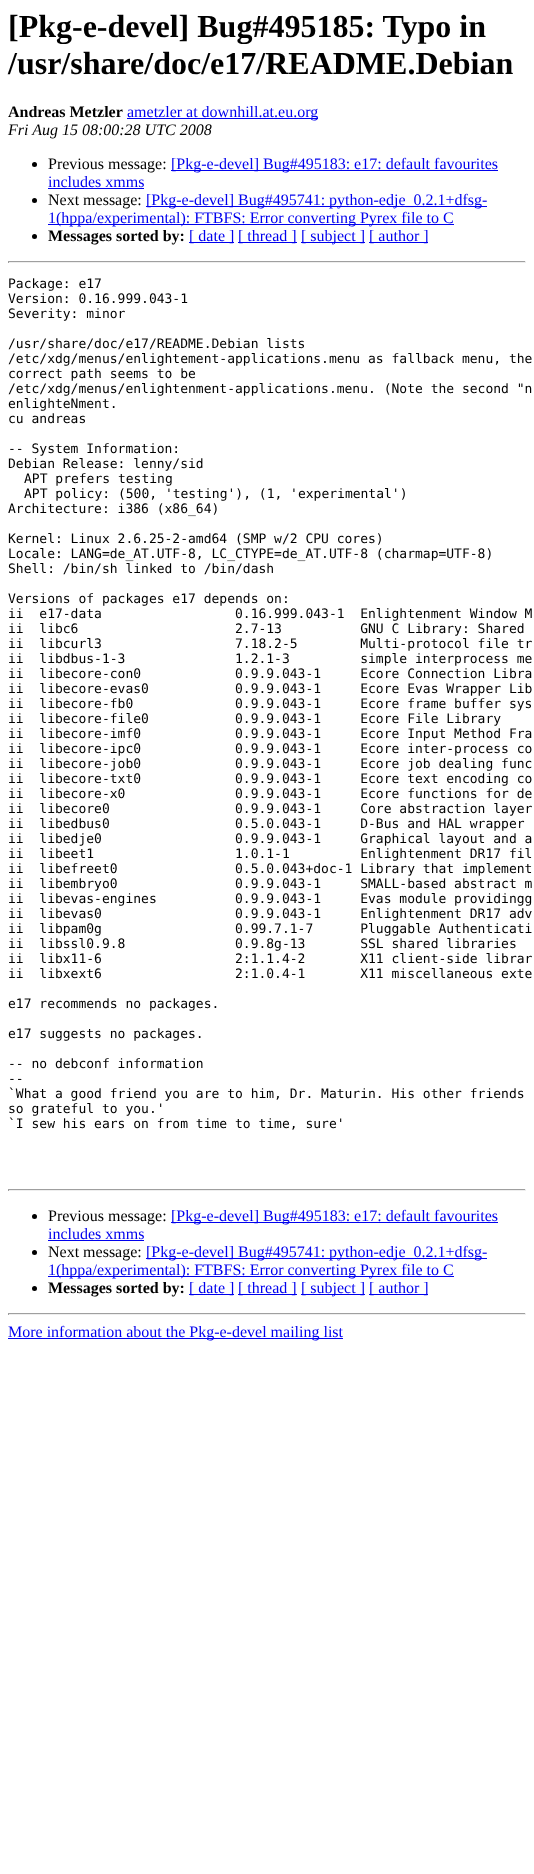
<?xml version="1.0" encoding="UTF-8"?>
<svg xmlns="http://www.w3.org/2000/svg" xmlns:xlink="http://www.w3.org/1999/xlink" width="534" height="1874">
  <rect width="100%" height="100%" fill="#ffffff" />
  <rect x="127" y="118" width="191" height="1" fill="#0000ee" />
  <circle cx="34.5" cy="164.5" r="2.5" fill="#000000" />
  <rect x="171" y="170" width="327" height="1" fill="#0000ee" />
  <rect x="48" y="188" width="96" height="1" fill="#0000ee" />
  <circle cx="34.5" cy="200.5" r="2.5" fill="#000000" />
  <rect x="146" y="206" width="341" height="1" fill="#0000ee" />
  <rect x="48" y="224" width="406" height="1" fill="#0000ee" />
  <circle cx="34.5" cy="236.5" r="2.5" fill="#000000" />
  <rect x="189" y="242" width="45" height="1" fill="#0000ee" />
  <rect x="238" y="242" width="59" height="1" fill="#0000ee" />
  <rect x="301" y="242" width="64" height="1" fill="#0000ee" />
  <rect x="369" y="242" width="59" height="1" fill="#0000ee" />
  <rect x="8" y="261" width="518" height="1" fill="#9f9f9f" />
  <rect x="525" y="261" width="1" height="2" fill="#eeeeee" />
  <rect x="8" y="262" width="518" height="1" fill="#eeeeee" />
  <rect x="8" y="261" width="1" height="2" fill="#9f9f9f" />
  <rect x="8" y="1189" width="518" height="1" fill="#9f9f9f" />
  <rect x="525" y="1189" width="1" height="2" fill="#eeeeee" />
  <rect x="8" y="1190" width="518" height="1" fill="#eeeeee" />
  <rect x="8" y="1189" width="1" height="2" fill="#9f9f9f" />
  <circle cx="34.5" cy="1216.5" r="2.5" fill="#000000" />
  <rect x="171" y="1222" width="327" height="1" fill="#0000ee" />
  <rect x="48" y="1240" width="96" height="1" fill="#0000ee" />
  <circle cx="34.5" cy="1252.5" r="2.5" fill="#000000" />
  <rect x="146" y="1258" width="341" height="1" fill="#0000ee" />
  <rect x="48" y="1276" width="406" height="1" fill="#0000ee" />
  <circle cx="34.5" cy="1288.5" r="2.5" fill="#000000" />
  <rect x="189" y="1294" width="45" height="1" fill="#0000ee" />
  <rect x="238" y="1294" width="59" height="1" fill="#0000ee" />
  <rect x="301" y="1294" width="64" height="1" fill="#0000ee" />
  <rect x="369" y="1294" width="59" height="1" fill="#0000ee" />
  <rect x="8" y="1313" width="518" height="1" fill="#9f9f9f" />
  <rect x="525" y="1313" width="1" height="2" fill="#eeeeee" />
  <rect x="8" y="1314" width="518" height="1" fill="#eeeeee" />
  <rect x="8" y="1313" width="1" height="2" fill="#9f9f9f" />
  <rect x="8" y="1338" width="335" height="1" fill="#0000ee" />
  <text x="8" y="37" style="font-family: Liberation Serif; font-size: 32px; font-weight: bold; fill: #000000">[Pkg-e-devel] Bug#495185: Typo in</text>
  <text x="8" y="74" style="font-family: Liberation Serif; font-size: 32px; font-weight: bold; fill: #000000">/usr/share/doc/e17/README.Debian</text>
  <text x="8" y="117" style="font-family: Liberation Serif; font-size: 16px; font-weight: bold; fill: #000000">Andreas Metzler</text>
  <text x="127" y="117" style="font-family: Liberation Serif; font-size: 16px; fill: #0000ee">ametzler at downhill.at.eu.org</text>
  <text x="8" y="135" style="font-family: Liberation Serif; font-size: 16px; font-style: italic; fill: #000000">Fri Aug 15 08:00:28 UTC 2008</text>
  <text x="48" y="169" style="font-family: Liberation Serif; font-size: 16px; fill: #000000">Previous message:</text>
  <text x="171" y="169" style="font-family: Liberation Serif; font-size: 16px; fill: #0000ee">[Pkg-e-devel] Bug#495183: e17: default favourites</text>
  <text x="48" y="187" style="font-family: Liberation Serif; font-size: 16px; fill: #0000ee">includes xmms</text>
  <text x="48" y="205" style="font-family: Liberation Serif; font-size: 16px; fill: #000000">Next message:</text>
  <text x="146" y="205" style="font-family: Liberation Serif; font-size: 16px; fill: #0000ee">[Pkg-e-devel] Bug#495741: python-edje_0.2.1+dfsg-</text>
  <text x="48" y="223" style="font-family: Liberation Serif; font-size: 16px; fill: #0000ee">1(hppa/experimental): FTBFS: Error converting Pyrex file to C</text>
  <text x="48" y="241" style="font-family: Liberation Serif; font-size: 16px; font-weight: bold; fill: #000000">Messages sorted by:</text>
  <text x="189" y="241" style="font-family: Liberation Serif; font-size: 16px; fill: #0000ee">[ date ]</text>
  <text x="238" y="241" style="font-family: Liberation Serif; font-size: 16px; fill: #0000ee">[ thread ]</text>
  <text x="301" y="241" style="font-family: Liberation Serif; font-size: 16px; fill: #0000ee">[ subject ]</text>
  <text x="369" y="241" style="font-family: Liberation Serif; font-size: 16px; fill: #0000ee">[ author ]</text>
  <text x="8" y="288" style="font-family: DejaVu Sans Mono; font-size: 13px; fill: #000000">Package: e17</text>
  <text x="8" y="303" style="font-family: DejaVu Sans Mono; font-size: 13px; fill: #000000">Version: 0.16.999.043-1</text>
  <text x="8" y="318" style="font-family: DejaVu Sans Mono; font-size: 13px; fill: #000000">Severity: minor</text>
  <text x="8" y="348" style="font-family: DejaVu Sans Mono; font-size: 13px; fill: #000000">/usr/share/doc/e17/README.Debian lists</text>
  <text x="8" y="363" style="font-family: DejaVu Sans Mono; font-size: 13px; fill: #000000">/etc/xdg/menus/enlightement-applications.menu as fallback menu, the</text>
  <text x="8" y="378" style="font-family: DejaVu Sans Mono; font-size: 13px; fill: #000000">correct path seems to be</text>
  <text x="8" y="393" style="font-family: DejaVu Sans Mono; font-size: 13px; fill: #000000">/etc/xdg/menus/enlightenment-applications.menu. (Note the second "n</text>
  <text x="8" y="408" style="font-family: DejaVu Sans Mono; font-size: 13px; fill: #000000">enlighteNment.</text>
  <text x="8" y="423" style="font-family: DejaVu Sans Mono; font-size: 13px; fill: #000000">cu andreas</text>
  <text x="8" y="453" style="font-family: DejaVu Sans Mono; font-size: 13px; fill: #000000">-- System Information:</text>
  <text x="8" y="468" style="font-family: DejaVu Sans Mono; font-size: 13px; fill: #000000">Debian Release: lenny/sid</text>
  <text x="24" y="483" style="font-family: DejaVu Sans Mono; font-size: 13px; fill: #000000">APT prefers testing</text>
  <text x="24" y="498" style="font-family: DejaVu Sans Mono; font-size: 13px; fill: #000000">APT policy: (500, 'testing'), (1, 'experimental')</text>
  <text x="8" y="513" style="font-family: DejaVu Sans Mono; font-size: 13px; fill: #000000">Architecture: i386 (x86_64)</text>
  <text x="8" y="543" style="font-family: DejaVu Sans Mono; font-size: 13px; fill: #000000">Kernel: Linux 2.6.25-2-amd64 (SMP w/2 CPU cores)</text>
  <text x="8" y="558" style="font-family: DejaVu Sans Mono; font-size: 13px; fill: #000000">Locale: LANG=de_AT.UTF-8, LC_CTYPE=de_AT.UTF-8 (charmap=UTF-8)</text>
  <text x="8" y="573" style="font-family: DejaVu Sans Mono; font-size: 13px; fill: #000000">Shell: /bin/sh linked to /bin/dash</text>
  <text x="8" y="603" style="font-family: DejaVu Sans Mono; font-size: 13px; fill: #000000">Versions of packages e17 depends on:</text>
  <text x="8" y="618" style="font-family: DejaVu Sans Mono; font-size: 13px; fill: #000000" xml:space="preserve">ii  e17-data                 0.16.999.043-1  Enlightenment Window M</text>
  <text x="8" y="633" style="font-family: DejaVu Sans Mono; font-size: 13px; fill: #000000" xml:space="preserve">ii  libc6                    2.7-13          GNU C Library: Shared</text>
  <text x="8" y="648" style="font-family: DejaVu Sans Mono; font-size: 13px; fill: #000000" xml:space="preserve">ii  libcurl3                 7.18.2-5        Multi-protocol file tr</text>
  <text x="8" y="663" style="font-family: DejaVu Sans Mono; font-size: 13px; fill: #000000" xml:space="preserve">ii  libdbus-1-3              1.2.1-3         simple interprocess me</text>
  <text x="8" y="678" style="font-family: DejaVu Sans Mono; font-size: 13px; fill: #000000" xml:space="preserve">ii  libecore-con0            0.9.9.043-1     Ecore Connection Libra</text>
  <text x="8" y="693" style="font-family: DejaVu Sans Mono; font-size: 13px; fill: #000000" xml:space="preserve">ii  libecore-evas0           0.9.9.043-1     Ecore Evas Wrapper Lib</text>
  <text x="8" y="708" style="font-family: DejaVu Sans Mono; font-size: 13px; fill: #000000" xml:space="preserve">ii  libecore-fb0             0.9.9.043-1     Ecore frame buffer sys</text>
  <text x="8" y="723" style="font-family: DejaVu Sans Mono; font-size: 13px; fill: #000000" xml:space="preserve">ii  libecore-file0           0.9.9.043-1     Ecore File Library</text>
  <text x="8" y="738" style="font-family: DejaVu Sans Mono; font-size: 13px; fill: #000000" xml:space="preserve">ii  libecore-imf0            0.9.9.043-1     Ecore Input Method Fra</text>
  <text x="8" y="753" style="font-family: DejaVu Sans Mono; font-size: 13px; fill: #000000" xml:space="preserve">ii  libecore-ipc0            0.9.9.043-1     Ecore inter-process co</text>
  <text x="8" y="768" style="font-family: DejaVu Sans Mono; font-size: 13px; fill: #000000" xml:space="preserve">ii  libecore-job0            0.9.9.043-1     Ecore job dealing func</text>
  <text x="8" y="783" style="font-family: DejaVu Sans Mono; font-size: 13px; fill: #000000" xml:space="preserve">ii  libecore-txt0            0.9.9.043-1     Ecore text encoding co</text>
  <text x="8" y="798" style="font-family: DejaVu Sans Mono; font-size: 13px; fill: #000000" xml:space="preserve">ii  libecore-x0              0.9.9.043-1     Ecore functions for de</text>
  <text x="8" y="813" style="font-family: DejaVu Sans Mono; font-size: 13px; fill: #000000" xml:space="preserve">ii  libecore0                0.9.9.043-1     Core abstraction layer</text>
  <text x="8" y="828" style="font-family: DejaVu Sans Mono; font-size: 13px; fill: #000000" xml:space="preserve">ii  libedbus0                0.5.0.043-1     D-Bus and HAL wrapper</text>
  <text x="8" y="843" style="font-family: DejaVu Sans Mono; font-size: 13px; fill: #000000" xml:space="preserve">ii  libedje0                 0.9.9.043-1     Graphical layout and a</text>
  <text x="8" y="858" style="font-family: DejaVu Sans Mono; font-size: 13px; fill: #000000" xml:space="preserve">ii  libeet1                  1.0.1-1         Enlightenment DR17 fil</text>
  <text x="8" y="873" style="font-family: DejaVu Sans Mono; font-size: 13px; fill: #000000" xml:space="preserve">ii  libefreet0               0.5.0.043+doc-1 Library that implement</text>
  <text x="8" y="888" style="font-family: DejaVu Sans Mono; font-size: 13px; fill: #000000" xml:space="preserve">ii  libembryo0               0.9.9.043-1     SMALL-based abstract m</text>
  <text x="8" y="903" style="font-family: DejaVu Sans Mono; font-size: 13px; fill: #000000" xml:space="preserve">ii  libevas-engines          0.9.9.043-1     Evas module providingg</text>
  <text x="8" y="918" style="font-family: DejaVu Sans Mono; font-size: 13px; fill: #000000" xml:space="preserve">ii  libevas0                 0.9.9.043-1     Enlightenment DR17 adv</text>
  <text x="8" y="933" style="font-family: DejaVu Sans Mono; font-size: 13px; fill: #000000" xml:space="preserve">ii  libpam0g                 0.99.7.1-7      Pluggable Authenticati</text>
  <text x="8" y="948" style="font-family: DejaVu Sans Mono; font-size: 13px; fill: #000000" xml:space="preserve">ii  libssl0.9.8              0.9.8g-13       SSL shared libraries</text>
  <text x="8" y="963" style="font-family: DejaVu Sans Mono; font-size: 13px; fill: #000000" xml:space="preserve">ii  libx11-6                 2:1.1.4-2       X11 client-side librar</text>
  <text x="8" y="978" style="font-family: DejaVu Sans Mono; font-size: 13px; fill: #000000" xml:space="preserve">ii  libxext6                 2:1.0.4-1       X11 miscellaneous exte</text>
  <text x="8" y="1008" style="font-family: DejaVu Sans Mono; font-size: 13px; fill: #000000">e17 recommends no packages.</text>
  <text x="8" y="1038" style="font-family: DejaVu Sans Mono; font-size: 13px; fill: #000000">e17 suggests no packages.</text>
  <text x="8" y="1068" style="font-family: DejaVu Sans Mono; font-size: 13px; fill: #000000">-- no debconf information</text>
  <text x="8" y="1083" style="font-family: DejaVu Sans Mono; font-size: 13px; fill: #000000">--</text>
  <text x="8" y="1098" style="font-family: DejaVu Sans Mono; font-size: 13px; fill: #000000">`What a good friend you are to him, Dr. Maturin. His other friends</text>
  <text x="8" y="1113" style="font-family: DejaVu Sans Mono; font-size: 13px; fill: #000000">so grateful to you.'</text>
  <text x="8" y="1128" style="font-family: DejaVu Sans Mono; font-size: 13px; fill: #000000">`I sew his ears on from time to time, sure'</text>
  <text x="48" y="1221" style="font-family: Liberation Serif; font-size: 16px; fill: #000000">Previous message:</text>
  <text x="171" y="1221" style="font-family: Liberation Serif; font-size: 16px; fill: #0000ee">[Pkg-e-devel] Bug#495183: e17: default favourites</text>
  <text x="48" y="1239" style="font-family: Liberation Serif; font-size: 16px; fill: #0000ee">includes xmms</text>
  <text x="48" y="1257" style="font-family: Liberation Serif; font-size: 16px; fill: #000000">Next message:</text>
  <text x="146" y="1257" style="font-family: Liberation Serif; font-size: 16px; fill: #0000ee">[Pkg-e-devel] Bug#495741: python-edje_0.2.1+dfsg-</text>
  <text x="48" y="1275" style="font-family: Liberation Serif; font-size: 16px; fill: #0000ee">1(hppa/experimental): FTBFS: Error converting Pyrex file to C</text>
  <text x="48" y="1293" style="font-family: Liberation Serif; font-size: 16px; font-weight: bold; fill: #000000">Messages sorted by:</text>
  <text x="189" y="1293" style="font-family: Liberation Serif; font-size: 16px; fill: #0000ee">[ date ]</text>
  <text x="238" y="1293" style="font-family: Liberation Serif; font-size: 16px; fill: #0000ee">[ thread ]</text>
  <text x="301" y="1293" style="font-family: Liberation Serif; font-size: 16px; fill: #0000ee">[ subject ]</text>
  <text x="369" y="1293" style="font-family: Liberation Serif; font-size: 16px; fill: #0000ee">[ author ]</text>
  <text x="8" y="1337" style="font-family: Liberation Serif; font-size: 16px; fill: #0000ee">More information about the Pkg-e-devel mailing list</text>
</svg>
